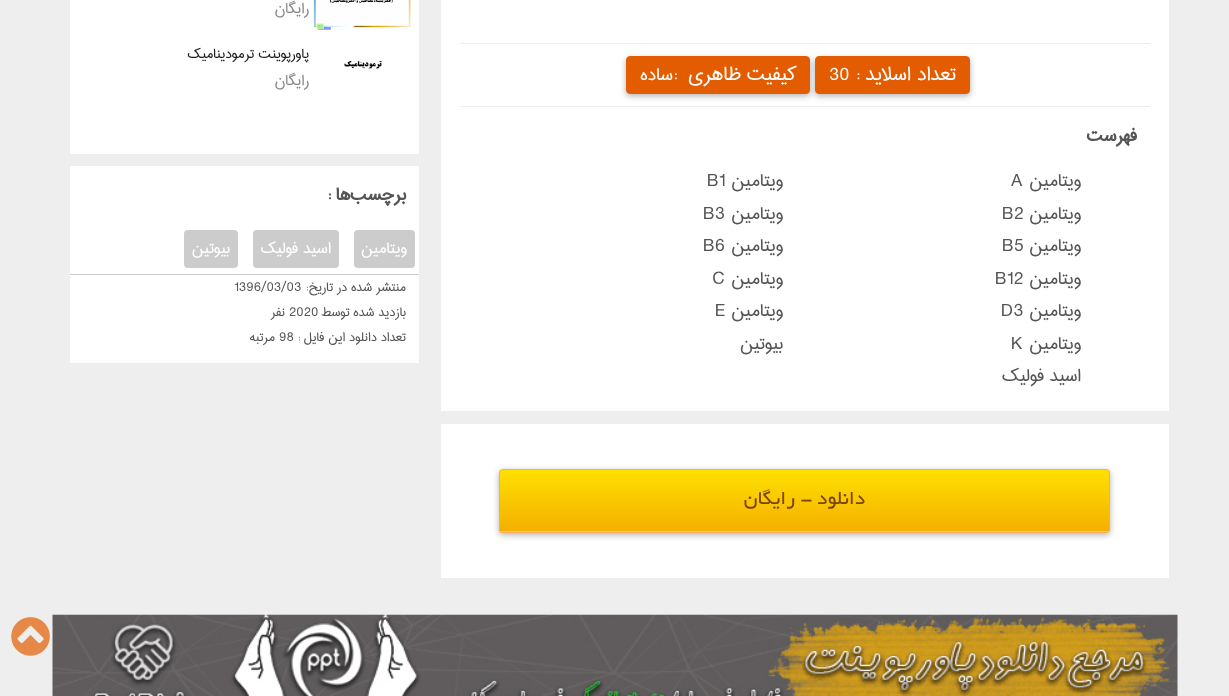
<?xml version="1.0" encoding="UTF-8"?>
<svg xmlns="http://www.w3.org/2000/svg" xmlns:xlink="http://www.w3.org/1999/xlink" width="1229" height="696">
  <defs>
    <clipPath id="clip1"><rect x="499" y="469" width="611" height="64" rx="4" /></clipPath>
    <linearGradient id="g1" gradientUnits="userSpaceOnUse" x1="804" y1="470" x2="804" y2="531"><stop offset="0" stop-color="#fee000" /><stop offset="1" stop-color="#f5b000" /></linearGradient>
    <linearGradient id="g2" gradientUnits="userSpaceOnUse" x1="804" y1="531" x2="804" y2="593"><stop offset="0" stop-color="#fee000" /><stop offset="1" stop-color="#f5b000" /></linearGradient>
  </defs>
  <rect width="100%" height="100%" fill="#eeeeee" />
  <rect x="441" width="728" height="578" fill="#ffffff" />
  <rect x="460" y="43" width="690" height="1" fill="#eeeeee" />
  <rect x="626" y="59" width="184" height="37" rx="4" fill="#000000" fill-opacity="0.3" filter="blur(3px)" />
  <rect x="626.5" y="56.5" width="183" height="37" rx="3.5" fill="#e35c00" stroke="#e35c00" />
  <rect x="815" y="59" width="155" height="37" rx="4" fill="#000000" fill-opacity="0.3" filter="blur(3px)" />
  <rect x="815.5" y="56.5" width="154" height="37" rx="3.5" fill="#e35c00" stroke="#e35c00" />
  <rect x="460" y="106" width="690" height="1" fill="#eeeeee" />
  <rect x="441" y="411" width="728" height="13" fill="#eeeeee" />
  <rect x="499" y="471" width="611" height="64" rx="4" fill="#000000" fill-opacity="0.3" filter="blur(3px)" />
  <g clip-path="url(#clip1)">
    <rect x="499" y="470" width="611" height="61" fill="url(#g1)" />
    <rect x="499" y="531" width="611" height="2" fill="url(#g2)" />
  </g>
  <rect x="499.5" y="469.5" width="610" height="63" rx="3.5" fill="none" stroke="#ffa75b" />
  <rect x="70" width="349" height="363" fill="#ffffff" />
  <image x="313" y="0" width="98" height="30" xlink:href="image1.png" />
  <image x="344" y="60" width="38" height="9" xlink:href="image2.png" />
  <rect x="70" y="154" width="349" height="12" fill="#eeeeee" />
  <rect x="354" y="230" width="61" height="38" rx="4" fill="#cccccc" />
  <rect x="253" y="230" width="86" height="38" rx="4" fill="#cccccc" />
  <rect x="184" y="230" width="54" height="38" rx="4" fill="#cccccc" />
  <rect x="70" y="274" width="349" height="1" fill="#cccccc" />
  <image x="52" y="614" width="1126" height="82" xlink:href="image3.png" />
  <image x="11" y="617" width="39" height="39" xlink:href="image4.png" />
  <text x="956" y="80" style="font-family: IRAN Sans; font-size: 25px; direction: rtl; fill: #ffffff">تعداد اسلاید :</text>
  <text x="829" y="80" style="font-family: IRAN Sans; font-size: 22.5px; fill: #ffffff">30</text>
  <text x="796" y="80" style="font-family: IRAN Sans; font-size: 25px; direction: rtl; fill: #ffffff">کیفیت ظاهری</text>
  <text x="673" y="80" style="font-family: IRAN Sans; font-size: 25px; fill: #ffffff">:</text>
  <text x="673" y="80" style="font-family: IRAN Sans; font-size: 22.5px; direction: rtl; fill: #ffffff">ساده</text>
  <text x="1137" y="141" style="font-family: IRAN Sans; font-size: 22.5px; font-weight: bold; direction: rtl; fill: #555555">‌فهرست</text>
  <text x="1081" y="186" style="font-family: IRAN Sans; font-size: 22.5px; direction: rtl; fill: #555555">ویتامین</text>
  <text x="1010" y="186" style="font-family: IRAN Sans; font-size: 22.5px; fill: #555555">A</text>
  <text x="783" y="186" style="font-family: IRAN Sans; font-size: 22.5px; direction: rtl; fill: #555555">ویتامین</text>
  <text x="707" y="186" style="font-family: IRAN Sans; font-size: 22.5px; fill: #555555">B1</text>
  <text x="1081" y="219" style="font-family: IRAN Sans; font-size: 22.5px; direction: rtl; fill: #555555">ویتامین</text>
  <text x="1002" y="219" style="font-family: IRAN Sans; font-size: 22.5px; fill: #555555">B2</text>
  <text x="783" y="219" style="font-family: IRAN Sans; font-size: 22.5px; direction: rtl; fill: #555555">ویتامین</text>
  <text x="703" y="219" style="font-family: IRAN Sans; font-size: 22.5px; fill: #555555">B3</text>
  <text x="1081" y="251" style="font-family: IRAN Sans; font-size: 22.5px; direction: rtl; fill: #555555">ویتامین</text>
  <text x="1002" y="251" style="font-family: IRAN Sans; font-size: 22.5px; fill: #555555">B5</text>
  <text x="783" y="251" style="font-family: IRAN Sans; font-size: 22.5px; direction: rtl; fill: #555555">ویتامین</text>
  <text x="703" y="251" style="font-family: IRAN Sans; font-size: 22.5px; fill: #555555">B6</text>
  <text x="1081" y="284" style="font-family: IRAN Sans; font-size: 22.5px; direction: rtl; fill: #555555">ویتامین</text>
  <text x="995" y="284" style="font-family: IRAN Sans; font-size: 22.5px; fill: #555555">B12</text>
  <text x="783" y="284" style="font-family: IRAN Sans; font-size: 22.5px; direction: rtl; fill: #555555">ویتامین</text>
  <text x="712" y="284" style="font-family: IRAN Sans; font-size: 22.5px; fill: #555555">C</text>
  <text x="1081" y="316" style="font-family: IRAN Sans; font-size: 22.5px; direction: rtl; fill: #555555">ویتامین</text>
  <text x="1001" y="316" style="font-family: IRAN Sans; font-size: 22.5px; fill: #555555">D3</text>
  <text x="783" y="316" style="font-family: IRAN Sans; font-size: 22.5px; direction: rtl; fill: #555555">ویتامین</text>
  <text x="715" y="316" style="font-family: IRAN Sans; font-size: 22.5px; fill: #555555">E</text>
  <text x="1081" y="349" style="font-family: IRAN Sans; font-size: 22.5px; direction: rtl; fill: #555555">ویتامین</text>
  <text x="1011" y="349" style="font-family: IRAN Sans; font-size: 22.5px; fill: #555555">K</text>
  <text x="783" y="349" style="font-family: IRAN Sans; font-size: 22.5px; direction: rtl; fill: #555555">بیوتین</text>
  <text x="1081" y="381" style="font-family: IRAN Sans; font-size: 22.5px; direction: rtl; fill: #555555">اسید فولیک</text>
  <text x="865" y="504" style="font-family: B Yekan; font-size: 21.25px; direction: rtl; fill: #7a4500">دانلود - رایگان</text>
  <text x="309" y="13" style="font-family: IRAN Sans; font-size: 19px; direction: rtl; fill: #888888">رایگان</text>
  <text x="309" y="58" style="font-family: IRAN Sans; font-size: 17.5px; direction: rtl; fill: #1d1d1d">پاورپوینت ترمودینامیک</text>
  <text x="309" y="85" style="font-family: IRAN Sans; font-size: 19px; direction: rtl; fill: #888888">رایگان</text>
  <text x="406" y="200" style="font-family: IRAN Sans; font-size: 22.5px; font-weight: bold; direction: rtl; fill: #555555">برچسب‌ها</text>
  <text x="327" y="200" style="font-family: IRAN Sans; font-size: 22.5px; font-weight: bold; fill: #555555">:</text>
  <text x="407" y="253" style="font-family: IRAN Sans; font-size: 20px; direction: rtl; fill: #ffffff">ویتامین</text>
  <text x="331" y="253" style="font-family: IRAN Sans; font-size: 20px; direction: rtl; fill: #ffffff">اسید فولیک</text>
  <text x="230" y="253" style="font-family: IRAN Sans; font-size: 20px; direction: rtl; fill: #ffffff">بیوتین</text>
  <text x="406" y="291" style="font-family: IRAN Sans; font-size: 16.25px; direction: rtl; fill: #555555">منتشر شده در تاریخ:</text>
  <text x="234" y="291" style="font-family: IRAN Sans; font-size: 16.25px; fill: #555555">1396/03/03</text>
  <text x="406" y="316" style="font-family: IRAN Sans; font-size: 16.25px; direction: rtl; fill: #555555">بازدید شده توسط</text>
  <text x="289" y="316" style="font-family: IRAN Sans; font-size: 16.25px; fill: #555555">2020</text>
  <text x="285" y="316" style="font-family: IRAN Sans; font-size: 16.25px; direction: rtl; fill: #555555">نفر</text>
  <text x="406" y="341" style="font-family: IRAN Sans; font-size: 16.25px; direction: rtl; fill: #555555">تعداد دانلود این فایل :</text>
  <text x="279" y="341" style="font-family: IRAN Sans; font-size: 16.25px; fill: #555555">98</text>
  <text x="275" y="341" style="font-family: IRAN Sans; font-size: 16.25px; direction: rtl; fill: #555555">مرتبه</text>
</svg>
